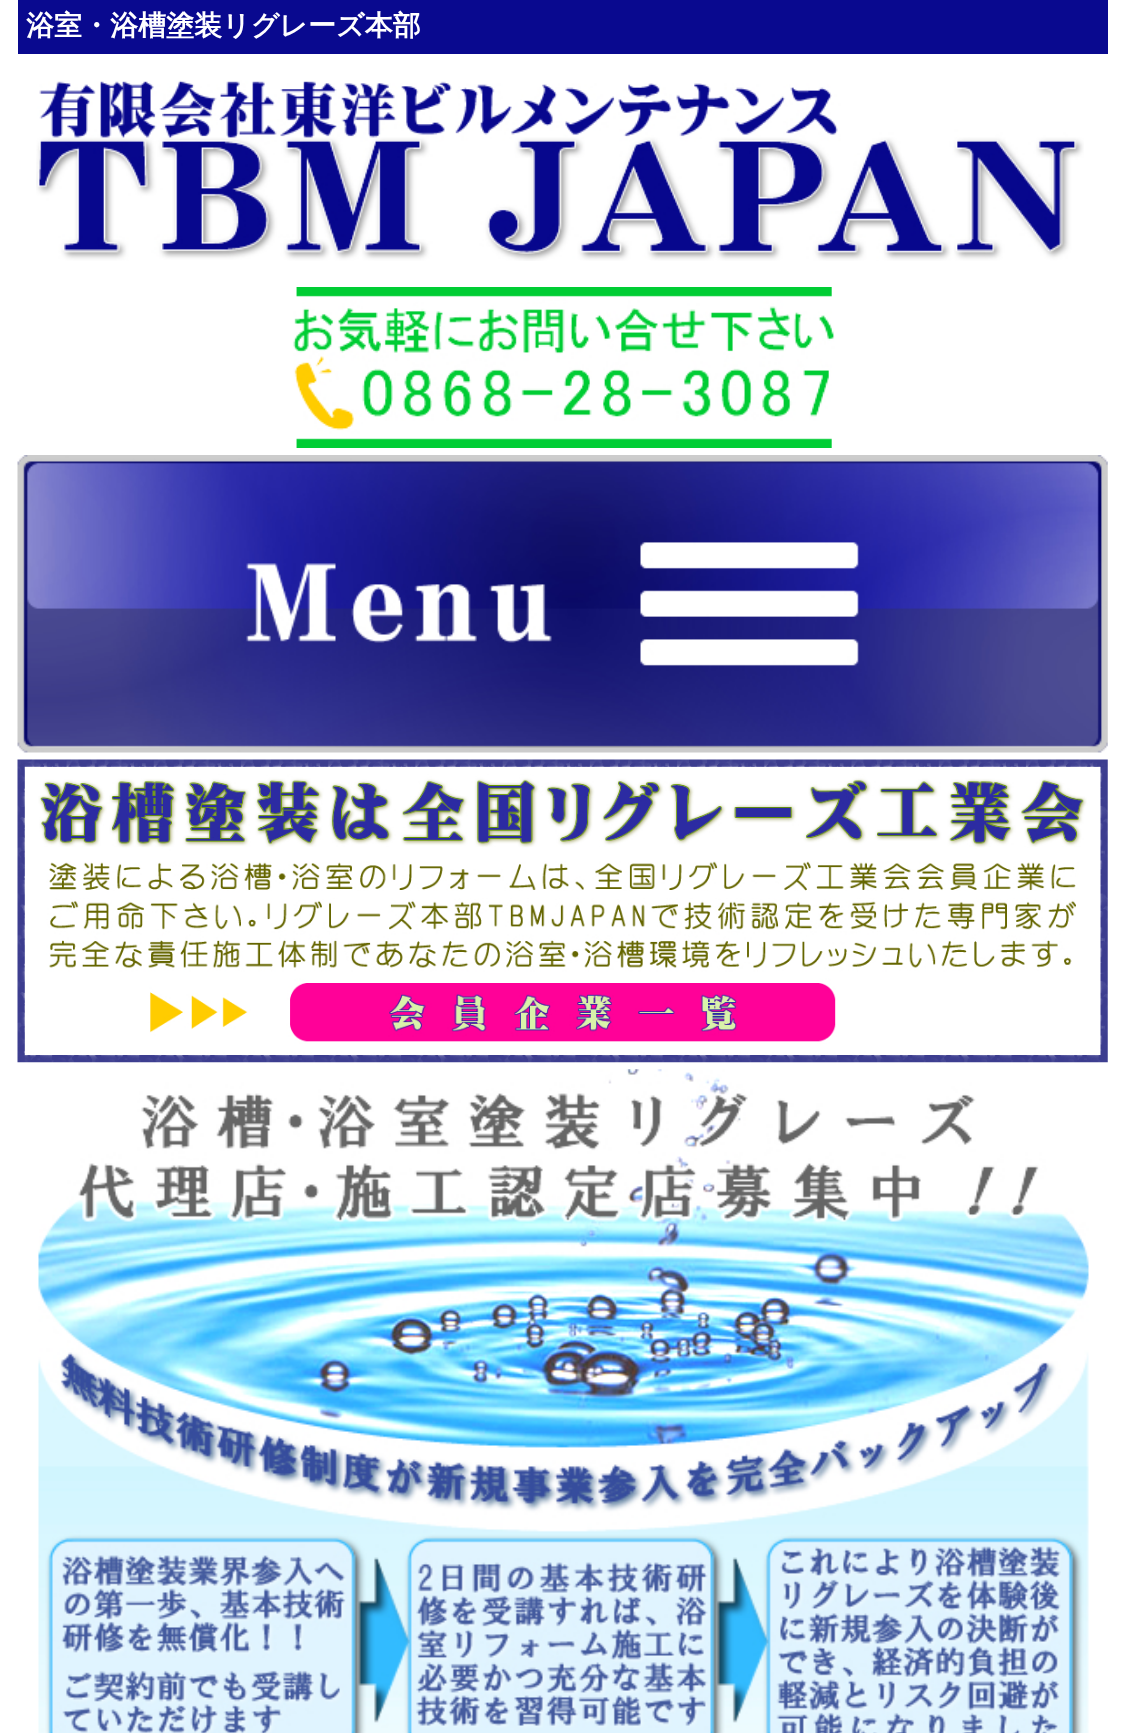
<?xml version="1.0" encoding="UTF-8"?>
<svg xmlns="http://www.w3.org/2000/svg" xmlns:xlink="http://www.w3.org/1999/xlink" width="1124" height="1733">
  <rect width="100%" height="100%" fill="#ffffff" />
  <rect x="18" width="1090" height="54" fill="#09098f" />
  <image x="36" y="80" width="1048" height="181" xlink:href="image1.png" />
  <image x="293" y="287" width="542" height="161" xlink:href="image2.png" />
  <image x="17" y="455" width="1091" height="298" xlink:href="image3.png" />
  <image x="17" y="759" width="1091" height="304" xlink:href="image4.png" />
  <image x="38" y="1069" width="1051" height="664" xlink:href="image5.png" />
  <text x="26" y="35" style="font-family: WenQuanYi Zen Hei; font-size: 28px; font-weight: bold; fill: #ffffff">浴室・浴槽塗装リグレーズ本部</text>
</svg>
